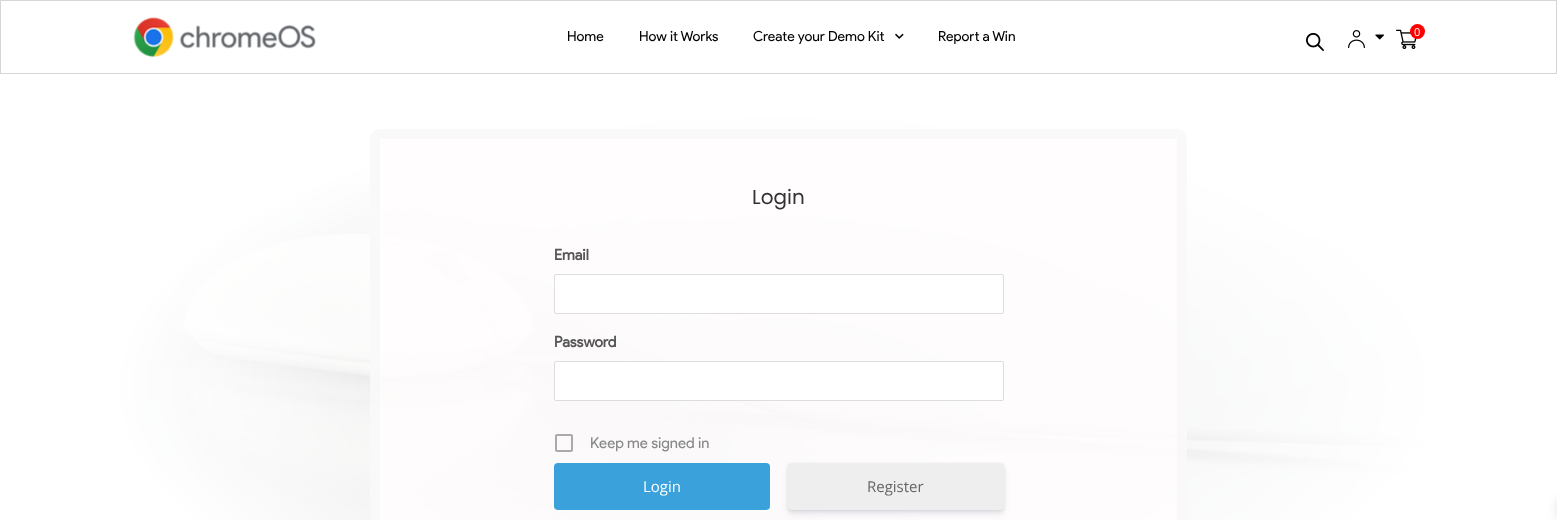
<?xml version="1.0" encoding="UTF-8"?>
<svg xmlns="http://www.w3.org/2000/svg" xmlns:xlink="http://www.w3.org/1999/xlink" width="1557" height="520">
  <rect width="100%" height="100%" fill="#ffffff" />
  <rect x="0.5" y="0.5" width="1556" height="73" fill="none" stroke="#d6d6d6" />
  <image x="133" y="17" width="183" height="40" xlink:href="image1.png" />
  <image x="895" y="33" width="9" height="6" xlink:href="image2.png" />
  <image x="1306" y="33" width="18" height="18" xlink:href="image3.png" />
  <image x="1348" y="30" width="17" height="18" xlink:href="image4.png" />
  <image x="1375" y="34" width="9" height="6" xlink:href="image5.png" />
  <image x="1396" y="29" width="21" height="20" xlink:href="image6.png" />
  <circle cx="1417.5" cy="31.5" r="7.5" fill="#ff0000" />
  <image x="50" y="79" width="1457" height="441" xlink:href="image7.png" />
  <rect x="370" y="129" width="817" height="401" rx="10" fill="#fffdfd" fill-opacity="0.85" />
  <rect x="375" y="134" width="807" height="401" rx="5" fill="none" stroke="#f7f7f7" stroke-opacity="0.8" stroke-width="10" />
  <rect x="554.5" y="274.5" width="449" height="39" rx="1.5" fill="#ffffff" stroke="#dddddd" />
  <rect x="554.5" y="361.5" width="449" height="39" rx="1.5" fill="#ffffff" stroke="#dddddd" />
  <image x="555" y="434" width="18" height="18" xlink:href="image8.png" />
  <rect x="554" y="463" width="216" height="47" rx="4" fill="#3ba1da" />
  <rect x="788" y="464" width="216" height="47" rx="4" fill="#000000" fill-opacity="0.08" filter="blur(1.5px)" />
  <rect x="788" y="467" width="216" height="47" rx="4" fill="#32325d" fill-opacity="0.11" filter="blur(3px)" />
  <rect x="788" y="463" width="216" height="47" rx="4" fill="#eeeeee" />
  <rect x="1557" y="499" width="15" height="20" fill="#000000" fill-opacity="0.1" filter="blur(5px)" />
  <text x="567" y="41" style="font-family: Product Sans; font-size: 14px; fill: #000000">Home</text>
  <text x="639" y="41" style="font-family: Product Sans; font-size: 14px; fill: #000000">How it Works</text>
  <text x="753" y="41" style="font-family: Product Sans; font-size: 14px; fill: #000000">Create your Demo Kit</text>
  <text x="938" y="41" style="font-family: Product Sans; font-size: 14px; fill: #000000">Report a Win</text>
  <text x="1414" y="36" style="font-family: Open Sans; font-size: 11px; fill: #ffffff">0</text>
  <text x="752" y="204" style="font-family: Poppins; font-size: 20px; fill: #333333">Login</text>
  <text x="554" y="260" style="font-family: Product Sans; font-size: 15px; font-weight: bold; fill: #555555">Email</text>
  <text x="554" y="347" style="font-family: Product Sans; font-size: 15px; font-weight: bold; fill: #555555">Password</text>
  <text x="590" y="448" style="font-family: Product Sans; font-size: 15px; fill: #888888">Keep me signed in</text>
  <text x="643" y="492" style="font-family: Open Sans; font-size: 15px; fill: #ffffff">Login</text>
  <text x="867" y="492" style="font-family: Open Sans; font-size: 15px; fill: #666666">Register</text>
</svg>
